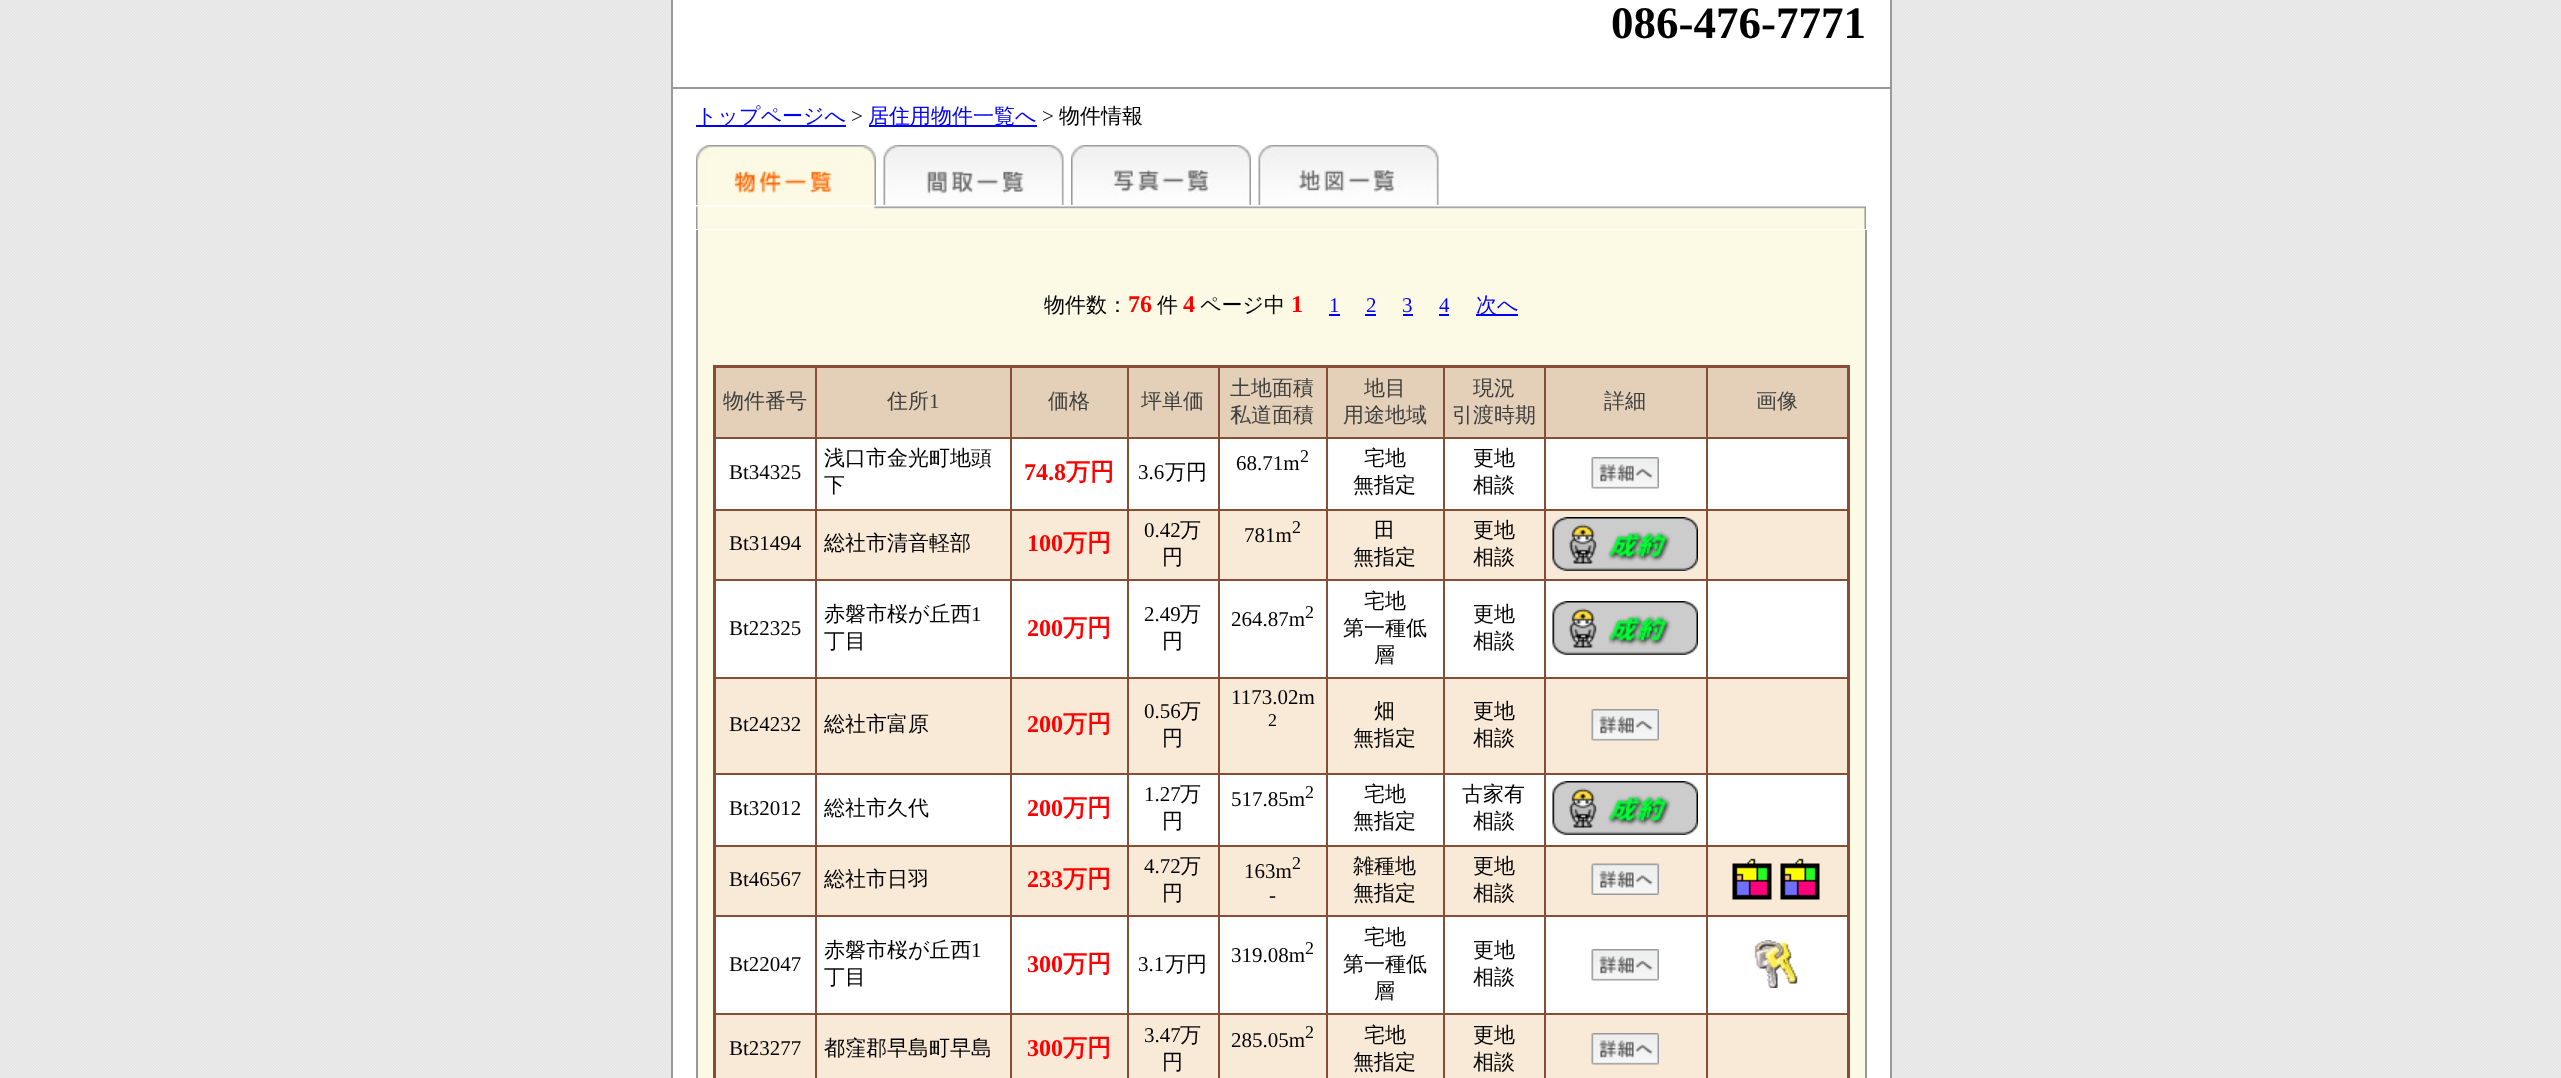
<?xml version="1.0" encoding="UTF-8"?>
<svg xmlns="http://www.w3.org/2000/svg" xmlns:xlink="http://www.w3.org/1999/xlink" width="2561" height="1078">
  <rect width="100%" height="100%" fill="#ffffff" />
  <image x="0" y="0" width="2561" height="1078" xlink:href="image1.png" />
  <rect x="672" y="-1" width="1219" height="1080" fill="#ffffff" stroke="#999999" stroke-width="2" />
  <rect x="672" y="87" width="1218" height="2" fill="#999999" />
  <rect x="696" y="125" width="150" height="2" fill="#0000ff" />
  <rect x="869" y="125" width="168" height="2" fill="#0000ff" />
  <image x="696" y="145" width="180" height="60" xlink:href="image2.png" />
  <image x="883" y="145" width="181" height="60" xlink:href="image3.png" />
  <image x="1071" y="145" width="180" height="60" xlink:href="image4.png" />
  <image x="1258" y="145" width="181" height="60" xlink:href="image5.png" />
  <image x="696" y="206" width="1170" height="23" xlink:href="image6.png" />
  <rect x="698" y="230" width="1167" height="848" fill="#fcfae4" />
  <rect x="1865" y="230" width="2" height="848" fill="#999999" />
  <rect x="696" y="230" width="2" height="848" fill="#999999" />
  <rect x="1329" y="314" width="11" height="2" fill="#0000ff" />
  <rect x="1365" y="314" width="11" height="2" fill="#0000ff" />
  <rect x="1403" y="314" width="10" height="2" fill="#0000ff" />
  <rect x="1439" y="314" width="10" height="2" fill="#0000ff" />
  <rect x="1476" y="314" width="42" height="2" fill="#0000ff" />
  <rect x="1706" y="437" width="144" height="2" fill="#864d37" />
  <rect x="1706" y="509" width="144" height="2" fill="#864d37" />
  <rect x="1706" y="579" width="144" height="2" fill="#864d37" />
  <rect x="1706" y="677" width="144" height="2" fill="#864d37" />
  <rect x="1706" y="773" width="144" height="2" fill="#864d37" />
  <rect x="1706" y="845" width="144" height="2" fill="#864d37" />
  <rect x="1706" y="915" width="144" height="2" fill="#864d37" />
  <rect x="1706" y="1013" width="144" height="2" fill="#864d37" />
  <rect x="1706" y="1013" width="2" height="65" fill="#864d37" />
  <rect x="1544" y="1013" width="163" height="2" fill="#864d37" />
  <rect x="1706" y="915" width="2" height="99" fill="#864d37" />
  <rect x="1544" y="915" width="163" height="2" fill="#864d37" />
  <rect x="1706" y="845" width="2" height="72" fill="#864d37" />
  <rect x="1544" y="845" width="163" height="2" fill="#864d37" />
  <rect x="1706" y="773" width="2" height="73" fill="#864d37" />
  <rect x="1544" y="773" width="163" height="2" fill="#864d37" />
  <rect x="1706" y="677" width="2" height="97" fill="#864d37" />
  <rect x="1544" y="677" width="163" height="2" fill="#864d37" />
  <rect x="1706" y="579" width="2" height="99" fill="#864d37" />
  <rect x="1544" y="579" width="163" height="2" fill="#864d37" />
  <rect x="1706" y="509" width="2" height="72" fill="#864d37" />
  <rect x="1544" y="509" width="163" height="2" fill="#864d37" />
  <rect x="1706" y="437" width="2" height="73" fill="#864d37" />
  <rect x="1544" y="437" width="163" height="2" fill="#864d37" />
  <rect x="1544" y="1013" width="2" height="65" fill="#864d37" />
  <rect x="1443" y="1013" width="102" height="2" fill="#864d37" />
  <rect x="1544" y="915" width="2" height="99" fill="#864d37" />
  <rect x="1443" y="915" width="102" height="2" fill="#864d37" />
  <rect x="1544" y="845" width="2" height="72" fill="#864d37" />
  <rect x="1443" y="845" width="102" height="2" fill="#864d37" />
  <rect x="1544" y="773" width="2" height="73" fill="#864d37" />
  <rect x="1443" y="773" width="102" height="2" fill="#864d37" />
  <rect x="1544" y="677" width="2" height="97" fill="#864d37" />
  <rect x="1443" y="677" width="102" height="2" fill="#864d37" />
  <rect x="1544" y="579" width="2" height="99" fill="#864d37" />
  <rect x="1443" y="579" width="102" height="2" fill="#864d37" />
  <rect x="1544" y="509" width="2" height="72" fill="#864d37" />
  <rect x="1443" y="509" width="102" height="2" fill="#864d37" />
  <rect x="1544" y="437" width="2" height="73" fill="#864d37" />
  <rect x="1443" y="437" width="102" height="2" fill="#864d37" />
  <rect x="1443" y="1013" width="2" height="65" fill="#864d37" />
  <rect x="1326" y="1013" width="119" height="2" fill="#864d37" />
  <rect x="1443" y="915" width="2" height="99" fill="#864d37" />
  <rect x="1326" y="915" width="119" height="2" fill="#864d37" />
  <rect x="1443" y="845" width="2" height="72" fill="#864d37" />
  <rect x="1326" y="845" width="119" height="2" fill="#864d37" />
  <rect x="1443" y="773" width="2" height="73" fill="#864d37" />
  <rect x="1326" y="773" width="119" height="2" fill="#864d37" />
  <rect x="1443" y="677" width="2" height="97" fill="#864d37" />
  <rect x="1326" y="677" width="119" height="2" fill="#864d37" />
  <rect x="1443" y="579" width="2" height="99" fill="#864d37" />
  <rect x="1326" y="579" width="119" height="2" fill="#864d37" />
  <rect x="1443" y="509" width="2" height="72" fill="#864d37" />
  <rect x="1326" y="509" width="119" height="2" fill="#864d37" />
  <rect x="1443" y="437" width="2" height="73" fill="#864d37" />
  <rect x="1326" y="437" width="119" height="2" fill="#864d37" />
  <rect x="1326" y="1013" width="2" height="65" fill="#864d37" />
  <rect x="1218" y="1013" width="110" height="2" fill="#864d37" />
  <rect x="1326" y="915" width="2" height="99" fill="#864d37" />
  <rect x="1218" y="915" width="110" height="2" fill="#864d37" />
  <rect x="1326" y="845" width="2" height="72" fill="#864d37" />
  <rect x="1218" y="845" width="110" height="2" fill="#864d37" />
  <rect x="1326" y="773" width="2" height="73" fill="#864d37" />
  <rect x="1218" y="773" width="110" height="2" fill="#864d37" />
  <rect x="1326" y="677" width="2" height="97" fill="#864d37" />
  <rect x="1218" y="677" width="110" height="2" fill="#864d37" />
  <rect x="1326" y="579" width="2" height="99" fill="#864d37" />
  <rect x="1218" y="579" width="110" height="2" fill="#864d37" />
  <rect x="1326" y="509" width="2" height="72" fill="#864d37" />
  <rect x="1218" y="509" width="110" height="2" fill="#864d37" />
  <rect x="1326" y="437" width="2" height="73" fill="#864d37" />
  <rect x="1218" y="437" width="110" height="2" fill="#864d37" />
  <rect x="1218" y="1013" width="2" height="65" fill="#864d37" />
  <rect x="1127" y="1013" width="93" height="2" fill="#864d37" />
  <rect x="1218" y="915" width="2" height="99" fill="#864d37" />
  <rect x="1127" y="915" width="93" height="2" fill="#864d37" />
  <rect x="1218" y="845" width="2" height="72" fill="#864d37" />
  <rect x="1127" y="845" width="93" height="2" fill="#864d37" />
  <rect x="1218" y="773" width="2" height="73" fill="#864d37" />
  <rect x="1127" y="773" width="93" height="2" fill="#864d37" />
  <rect x="1218" y="677" width="2" height="97" fill="#864d37" />
  <rect x="1127" y="677" width="93" height="2" fill="#864d37" />
  <rect x="1218" y="579" width="2" height="99" fill="#864d37" />
  <rect x="1127" y="579" width="93" height="2" fill="#864d37" />
  <rect x="1218" y="509" width="2" height="72" fill="#864d37" />
  <rect x="1127" y="509" width="93" height="2" fill="#864d37" />
  <rect x="1218" y="437" width="2" height="73" fill="#864d37" />
  <rect x="1127" y="437" width="93" height="2" fill="#864d37" />
  <rect x="1127" y="1013" width="2" height="65" fill="#864d37" />
  <rect x="1010" y="1013" width="118" height="2" fill="#864d37" />
  <rect x="1127" y="915" width="2" height="99" fill="#864d37" />
  <rect x="1010" y="915" width="118" height="2" fill="#864d37" />
  <rect x="1127" y="845" width="2" height="72" fill="#864d37" />
  <rect x="1010" y="845" width="118" height="2" fill="#864d37" />
  <rect x="1127" y="773" width="2" height="73" fill="#864d37" />
  <rect x="1010" y="773" width="118" height="2" fill="#864d37" />
  <rect x="1127" y="677" width="2" height="97" fill="#864d37" />
  <rect x="1010" y="677" width="118" height="2" fill="#864d37" />
  <rect x="1127" y="579" width="2" height="99" fill="#864d37" />
  <rect x="1010" y="579" width="118" height="2" fill="#864d37" />
  <rect x="1127" y="509" width="2" height="72" fill="#864d37" />
  <rect x="1010" y="509" width="118" height="2" fill="#864d37" />
  <rect x="1127" y="437" width="2" height="73" fill="#864d37" />
  <rect x="1010" y="437" width="118" height="2" fill="#864d37" />
  <rect x="1010" y="1013" width="2" height="65" fill="#864d37" />
  <rect x="815" y="1013" width="196" height="2" fill="#864d37" />
  <rect x="1010" y="915" width="2" height="99" fill="#864d37" />
  <rect x="815" y="915" width="196" height="2" fill="#864d37" />
  <rect x="1010" y="845" width="2" height="72" fill="#864d37" />
  <rect x="815" y="845" width="196" height="2" fill="#864d37" />
  <rect x="1010" y="773" width="2" height="73" fill="#864d37" />
  <rect x="815" y="773" width="196" height="2" fill="#864d37" />
  <rect x="1010" y="677" width="2" height="97" fill="#864d37" />
  <rect x="815" y="677" width="196" height="2" fill="#864d37" />
  <rect x="1010" y="579" width="2" height="99" fill="#864d37" />
  <rect x="815" y="579" width="196" height="2" fill="#864d37" />
  <rect x="1010" y="509" width="2" height="72" fill="#864d37" />
  <rect x="815" y="509" width="196" height="2" fill="#864d37" />
  <rect x="1010" y="437" width="2" height="73" fill="#864d37" />
  <rect x="815" y="437" width="196" height="2" fill="#864d37" />
  <rect x="815" y="1013" width="2" height="65" fill="#864d37" />
  <rect x="714" y="1013" width="102" height="2" fill="#864d37" />
  <rect x="815" y="915" width="2" height="99" fill="#864d37" />
  <rect x="714" y="915" width="102" height="2" fill="#864d37" />
  <rect x="815" y="845" width="2" height="72" fill="#864d37" />
  <rect x="714" y="845" width="102" height="2" fill="#864d37" />
  <rect x="815" y="773" width="2" height="73" fill="#864d37" />
  <rect x="714" y="773" width="102" height="2" fill="#864d37" />
  <rect x="815" y="677" width="2" height="97" fill="#864d37" />
  <rect x="714" y="677" width="102" height="2" fill="#864d37" />
  <rect x="815" y="579" width="2" height="99" fill="#864d37" />
  <rect x="714" y="579" width="102" height="2" fill="#864d37" />
  <rect x="815" y="509" width="2" height="72" fill="#864d37" />
  <rect x="714" y="509" width="102" height="2" fill="#864d37" />
  <rect x="815" y="437" width="2" height="73" fill="#864d37" />
  <rect x="714" y="437" width="102" height="2" fill="#864d37" />
  <rect x="815" y="366" width="2" height="72" fill="#864d37" />
  <rect x="1010" y="366" width="2" height="72" fill="#864d37" />
  <rect x="1127" y="366" width="2" height="72" fill="#864d37" />
  <rect x="1218" y="366" width="2" height="72" fill="#864d37" />
  <rect x="1326" y="366" width="2" height="72" fill="#864d37" />
  <rect x="1443" y="366" width="2" height="72" fill="#864d37" />
  <rect x="1544" y="366" width="2" height="72" fill="#864d37" />
  <rect x="1706" y="366" width="2" height="72" fill="#864d37" />
  <rect x="713" y="365" width="1137" height="3" fill="#864d37" />
  <rect x="1847" y="365" width="3" height="713" fill="#864d37" />
  <rect x="713" y="365" width="3" height="713" fill="#864d37" />
  <rect x="716" y="368" width="99" height="69" fill="#e4d0b8" />
  <rect x="817" y="368" width="193" height="69" fill="#e4d0b8" />
  <rect x="1012" y="368" width="115" height="69" fill="#e4d0b8" />
  <rect x="1129" y="368" width="89" height="69" fill="#e4d0b8" />
  <rect x="1220" y="368" width="106" height="69" fill="#e4d0b8" />
  <rect x="1328" y="368" width="115" height="69" fill="#e4d0b8" />
  <rect x="1445" y="368" width="99" height="69" fill="#e4d0b8" />
  <rect x="1546" y="368" width="160" height="69" fill="#e4d0b8" />
  <rect x="1708" y="368" width="139" height="69" fill="#e4d0b8" />
  <rect x="716" y="439" width="99" height="70" fill="#ffffff" />
  <rect x="817" y="439" width="193" height="70" fill="#ffffff" />
  <rect x="1012" y="439" width="115" height="70" fill="#ffffff" />
  <rect x="1129" y="439" width="89" height="70" fill="#ffffff" />
  <rect x="1220" y="439" width="106" height="70" fill="#ffffff" />
  <rect x="1328" y="439" width="115" height="70" fill="#ffffff" />
  <rect x="1445" y="439" width="99" height="70" fill="#ffffff" />
  <rect x="1546" y="439" width="160" height="70" fill="#ffffff" />
  <image x="1591" y="457" width="68" height="32" xlink:href="image7.png" />
  <rect x="1708" y="439" width="139" height="70" fill="#ffffff" />
  <rect x="716" y="511" width="99" height="68" fill="#f9ead7" />
  <rect x="817" y="511" width="193" height="68" fill="#f9ead7" />
  <rect x="1012" y="511" width="115" height="68" fill="#f9ead7" />
  <rect x="1129" y="511" width="89" height="68" fill="#f9ead7" />
  <rect x="1220" y="511" width="106" height="68" fill="#f9ead7" />
  <rect x="1328" y="511" width="115" height="68" fill="#f9ead7" />
  <rect x="1445" y="511" width="99" height="68" fill="#f9ead7" />
  <rect x="1546" y="511" width="160" height="68" fill="#f9ead7" />
  <image x="1552" y="517" width="146" height="54" xlink:href="image8.png" />
  <rect x="1708" y="511" width="139" height="68" fill="#f9ead7" />
  <rect x="716" y="581" width="99" height="96" fill="#ffffff" />
  <rect x="817" y="581" width="193" height="96" fill="#ffffff" />
  <rect x="1012" y="581" width="115" height="96" fill="#ffffff" />
  <rect x="1129" y="581" width="89" height="96" fill="#ffffff" />
  <rect x="1220" y="581" width="106" height="96" fill="#ffffff" />
  <rect x="1328" y="581" width="115" height="96" fill="#ffffff" />
  <rect x="1445" y="581" width="99" height="96" fill="#ffffff" />
  <rect x="1546" y="581" width="160" height="96" fill="#ffffff" />
  <image x="1552" y="601" width="146" height="54" xlink:href="image9.png" />
  <rect x="1708" y="581" width="139" height="96" fill="#ffffff" />
  <rect x="716" y="679" width="99" height="94" fill="#f9ead7" />
  <rect x="817" y="679" width="193" height="94" fill="#f9ead7" />
  <rect x="1012" y="679" width="115" height="94" fill="#f9ead7" />
  <rect x="1129" y="679" width="89" height="94" fill="#f9ead7" />
  <rect x="1220" y="679" width="106" height="94" fill="#f9ead7" />
  <rect x="1328" y="679" width="115" height="94" fill="#f9ead7" />
  <rect x="1445" y="679" width="99" height="94" fill="#f9ead7" />
  <rect x="1546" y="679" width="160" height="94" fill="#f9ead7" />
  <image x="1591" y="709" width="68" height="32" xlink:href="image10.png" />
  <rect x="1708" y="679" width="139" height="94" fill="#f9ead7" />
  <rect x="716" y="775" width="99" height="70" fill="#ffffff" />
  <rect x="817" y="775" width="193" height="70" fill="#ffffff" />
  <rect x="1012" y="775" width="115" height="70" fill="#ffffff" />
  <rect x="1129" y="775" width="89" height="70" fill="#ffffff" />
  <rect x="1220" y="775" width="106" height="70" fill="#ffffff" />
  <rect x="1328" y="775" width="115" height="70" fill="#ffffff" />
  <rect x="1445" y="775" width="99" height="70" fill="#ffffff" />
  <rect x="1546" y="775" width="160" height="70" fill="#ffffff" />
  <image x="1552" y="781" width="146" height="54" xlink:href="image9.png" />
  <rect x="1708" y="775" width="139" height="70" fill="#ffffff" />
  <rect x="716" y="847" width="99" height="68" fill="#f9ead7" />
  <rect x="817" y="847" width="193" height="68" fill="#f9ead7" />
  <rect x="1012" y="847" width="115" height="68" fill="#f9ead7" />
  <rect x="1129" y="847" width="89" height="68" fill="#f9ead7" />
  <rect x="1220" y="847" width="106" height="68" fill="#f9ead7" />
  <rect x="1328" y="847" width="115" height="68" fill="#f9ead7" />
  <rect x="1445" y="847" width="99" height="68" fill="#f9ead7" />
  <rect x="1546" y="847" width="160" height="68" fill="#f9ead7" />
  <image x="1591" y="863" width="68" height="32" xlink:href="image11.png" />
  <rect x="1708" y="847" width="139" height="68" fill="#f9ead7" />
  <image x="1732" y="858" width="40" height="42" xlink:href="image12.png" />
  <image x="1780" y="858" width="40" height="42" xlink:href="image12.png" />
  <rect x="716" y="917" width="99" height="96" fill="#ffffff" />
  <rect x="817" y="917" width="193" height="96" fill="#ffffff" />
  <rect x="1012" y="917" width="115" height="96" fill="#ffffff" />
  <rect x="1129" y="917" width="89" height="96" fill="#ffffff" />
  <rect x="1220" y="917" width="106" height="96" fill="#ffffff" />
  <rect x="1328" y="917" width="115" height="96" fill="#ffffff" />
  <rect x="1445" y="917" width="99" height="96" fill="#ffffff" />
  <rect x="1546" y="917" width="160" height="96" fill="#ffffff" />
  <image x="1591" y="949" width="68" height="32" xlink:href="image7.png" />
  <rect x="1708" y="917" width="139" height="96" fill="#ffffff" />
  <image x="1754" y="940" width="44" height="48" xlink:href="image13.png" />
  <rect x="716" y="1015" width="99" height="63" fill="#f9ead7" />
  <rect x="817" y="1015" width="193" height="63" fill="#f9ead7" />
  <rect x="1012" y="1015" width="115" height="63" fill="#f9ead7" />
  <rect x="1129" y="1015" width="89" height="63" fill="#f9ead7" />
  <rect x="1220" y="1015" width="106" height="63" fill="#f9ead7" />
  <rect x="1328" y="1015" width="115" height="63" fill="#f9ead7" />
  <rect x="1445" y="1015" width="99" height="63" fill="#f9ead7" />
  <rect x="1546" y="1015" width="160" height="63" fill="#f9ead7" />
  <image x="1591" y="1033" width="68" height="32" xlink:href="image10.png" />
  <rect x="1708" y="1015" width="139" height="63" fill="#f9ead7" />
  <text x="1611" y="38" style="font-family: Liberation Serif; font-size: 45px; font-weight: bold; fill: #000000">086-476-7771</text>
  <text x="696" y="123" style="font-family: WenQuanYi Zen Hei; font-size: 21px; font-weight: 500; fill: #0000ff">トップページへ</text>
  <text x="851" y="123" style="font-family: Liberation Serif; font-size: 21px; fill: #000000">&gt;</text>
  <text x="868" y="123" style="font-family: WenQuanYi Zen Hei; font-size: 21px; font-weight: 500; fill: #0000ff">居住用物件一覧へ</text>
  <text x="1042" y="123" style="font-family: Liberation Serif; font-size: 21px; fill: #000000">&gt;</text>
  <text x="1059" y="123" style="font-family: WenQuanYi Zen Hei; font-size: 21px; font-weight: 500; fill: #000000">物件情報</text>
  <text x="1044" y="312" style="font-family: WenQuanYi Zen Hei; font-size: 21px; font-weight: 500; fill: #000000">物件数：</text>
  <text x="1128" y="312" style="font-family: Liberation Serif; font-size: 24px; font-weight: bold; fill: #ff0000">76</text>
  <text x="1157" y="312" style="font-family: WenQuanYi Zen Hei; font-size: 21px; font-weight: 500; fill: #000000">件</text>
  <text x="1183" y="312" style="font-family: Liberation Serif; font-size: 24px; font-weight: bold; fill: #ff0000">4</text>
  <text x="1200" y="312" style="font-family: WenQuanYi Zen Hei; font-size: 21px; font-weight: 500; fill: #000000">ページ中</text>
  <text x="1291" y="312" style="font-family: Liberation Serif; font-size: 24px; font-weight: bold; fill: #ff0000">1</text>
  <text x="1329" y="312" style="font-family: Liberation Serif; font-size: 21px; fill: #0000ff">1</text>
  <text x="1366" y="312" style="font-family: Liberation Serif; font-size: 21px; fill: #0000ff">2</text>
  <text x="1402" y="312" style="font-family: Liberation Serif; font-size: 21px; fill: #0000ff">3</text>
  <text x="1439" y="312" style="font-family: Liberation Serif; font-size: 21px; fill: #0000ff">4</text>
  <text x="1476" y="312" style="font-family: WenQuanYi Zen Hei; font-size: 21px; font-weight: 500; fill: #0000ff">次へ</text>
  <text x="723" y="408" style="font-family: WenQuanYi Zen Hei; font-size: 21px; font-weight: 500; fill: #3f3f3f">物件番号</text>
  <text x="887" y="408" style="font-family: WenQuanYi Zen Hei; font-size: 21px; font-weight: 500; fill: #3f3f3f">住所</text>
  <text x="929" y="408" style="font-family: Liberation Serif; font-size: 21px; fill: #3f3f3f">1</text>
  <text x="1048" y="408" style="font-family: WenQuanYi Zen Hei; font-size: 21px; font-weight: 500; fill: #3f3f3f">価格</text>
  <text x="1141" y="408" style="font-family: WenQuanYi Zen Hei; font-size: 21px; font-weight: 500; fill: #3f3f3f">坪単価</text>
  <text x="1230" y="395" style="font-family: WenQuanYi Zen Hei; font-size: 21px; font-weight: 500; fill: #3f3f3f">土地面積</text>
  <text x="1230" y="422" style="font-family: WenQuanYi Zen Hei; font-size: 21px; font-weight: 500; fill: #3f3f3f">私道面積</text>
  <text x="1364" y="395" style="font-family: WenQuanYi Zen Hei; font-size: 21px; font-weight: 500; fill: #3f3f3f">地目</text>
  <text x="1343" y="422" style="font-family: WenQuanYi Zen Hei; font-size: 21px; font-weight: 500; fill: #3f3f3f">用途地域</text>
  <text x="1473" y="395" style="font-family: WenQuanYi Zen Hei; font-size: 21px; font-weight: 500; fill: #3f3f3f">現況</text>
  <text x="1452" y="422" style="font-family: WenQuanYi Zen Hei; font-size: 21px; font-weight: 500; fill: #3f3f3f">引渡時期</text>
  <text x="1604" y="408" style="font-family: WenQuanYi Zen Hei; font-size: 21px; font-weight: 500; fill: #3f3f3f">詳細</text>
  <text x="1756" y="408" style="font-family: WenQuanYi Zen Hei; font-size: 21px; font-weight: 500; fill: #3f3f3f">画像</text>
  <text x="729" y="479" style="font-family: Liberation Serif; font-size: 21px; fill: #000000">Bt34325</text>
  <text x="824" y="465" style="font-family: WenQuanYi Zen Hei; font-size: 21px; font-weight: 500; fill: #000000">浅口市金光町地頭</text>
  <text x="824" y="492" style="font-family: WenQuanYi Zen Hei; font-size: 21px; font-weight: 500; fill: #000000">下</text>
  <text x="1024" y="480" style="font-family: Liberation Serif; font-size: 24px; font-weight: bold; fill: #ff0000">74.8</text>
  <text x="1066" y="480" style="font-family: WenQuanYi Zen Hei; font-size: 24px; font-weight: bold; fill: #ff0000">万円</text>
  <text x="1138" y="479" style="font-family: Liberation Serif; font-size: 21px; fill: #000000">3.6</text>
  <text x="1165" y="479" style="font-family: WenQuanYi Zen Hei; font-size: 21px; font-weight: 500; fill: #000000">万円</text>
  <text x="1236" y="470" style="font-family: Liberation Serif; font-size: 21px; fill: #000000">68.71m</text>
  <text x="1300" y="462" style="font-family: Liberation Serif; font-size: 18px; fill: #000000">2</text>
  <text x="1364" y="465" style="font-family: WenQuanYi Zen Hei; font-size: 21px; font-weight: 500; fill: #000000">宅地</text>
  <text x="1353" y="492" style="font-family: WenQuanYi Zen Hei; font-size: 21px; font-weight: 500; fill: #000000">無指定</text>
  <text x="1473" y="465" style="font-family: WenQuanYi Zen Hei; font-size: 21px; font-weight: 500; fill: #000000">更地</text>
  <text x="1473" y="492" style="font-family: WenQuanYi Zen Hei; font-size: 21px; font-weight: 500; fill: #000000">相談</text>
  <text x="729" y="550" style="font-family: Liberation Serif; font-size: 21px; fill: #000000">Bt31494</text>
  <text x="824" y="550" style="font-family: WenQuanYi Zen Hei; font-size: 21px; font-weight: 500; fill: #000000">総社市清音軽部</text>
  <text x="1027" y="551" style="font-family: Liberation Serif; font-size: 24px; font-weight: bold; fill: #ff0000">100</text>
  <text x="1063" y="551" style="font-family: WenQuanYi Zen Hei; font-size: 24px; font-weight: bold; fill: #ff0000">万円</text>
  <text x="1144" y="537" style="font-family: Liberation Serif; font-size: 21px; fill: #000000">0.42</text>
  <text x="1180" y="537" style="font-family: WenQuanYi Zen Hei; font-size: 21px; font-weight: 500; fill: #000000">万</text>
  <text x="1162" y="564" style="font-family: WenQuanYi Zen Hei; font-size: 21px; font-weight: 500; fill: #000000">円</text>
  <text x="1244" y="542" style="font-family: Liberation Serif; font-size: 21px; fill: #000000">781m</text>
  <text x="1292" y="533" style="font-family: Liberation Serif; font-size: 18px; fill: #000000">2</text>
  <text x="1374" y="537" style="font-family: WenQuanYi Zen Hei; font-size: 21px; font-weight: 500; fill: #000000">田</text>
  <text x="1353" y="564" style="font-family: WenQuanYi Zen Hei; font-size: 21px; font-weight: 500; fill: #000000">無指定</text>
  <text x="1473" y="537" style="font-family: WenQuanYi Zen Hei; font-size: 21px; font-weight: 500; fill: #000000">更地</text>
  <text x="1473" y="564" style="font-family: WenQuanYi Zen Hei; font-size: 21px; font-weight: 500; fill: #000000">相談</text>
  <text x="729" y="635" style="font-family: Liberation Serif; font-size: 21px; fill: #000000">Bt22325</text>
  <text x="824" y="621" style="font-family: WenQuanYi Zen Hei; font-size: 21px; font-weight: 500; fill: #000000">赤磐市桜が丘西</text>
  <text x="971" y="621" style="font-family: Liberation Serif; font-size: 21px; fill: #000000">1</text>
  <text x="824" y="648" style="font-family: WenQuanYi Zen Hei; font-size: 21px; font-weight: 500; fill: #000000">丁目</text>
  <text x="1027" y="636" style="font-family: Liberation Serif; font-size: 24px; font-weight: bold; fill: #ff0000">200</text>
  <text x="1063" y="636" style="font-family: WenQuanYi Zen Hei; font-size: 24px; font-weight: bold; fill: #ff0000">万円</text>
  <text x="1144" y="621" style="font-family: Liberation Serif; font-size: 21px; fill: #000000">2.49</text>
  <text x="1180" y="621" style="font-family: WenQuanYi Zen Hei; font-size: 21px; font-weight: 500; fill: #000000">万</text>
  <text x="1162" y="648" style="font-family: WenQuanYi Zen Hei; font-size: 21px; font-weight: 500; fill: #000000">円</text>
  <text x="1231" y="626" style="font-family: Liberation Serif; font-size: 21px; fill: #000000">264.87m</text>
  <text x="1305" y="618" style="font-family: Liberation Serif; font-size: 18px; fill: #000000">2</text>
  <text x="1364" y="608" style="font-family: WenQuanYi Zen Hei; font-size: 21px; font-weight: 500; fill: #000000">宅地</text>
  <text x="1343" y="635" style="font-family: WenQuanYi Zen Hei; font-size: 21px; font-weight: 500; fill: #000000">第一種低</text>
  <text x="1374" y="662" style="font-family: WenQuanYi Zen Hei; font-size: 21px; font-weight: 500; fill: #000000">層</text>
  <text x="1473" y="621" style="font-family: WenQuanYi Zen Hei; font-size: 21px; font-weight: 500; fill: #000000">更地</text>
  <text x="1473" y="648" style="font-family: WenQuanYi Zen Hei; font-size: 21px; font-weight: 500; fill: #000000">相談</text>
  <text x="729" y="731" style="font-family: Liberation Serif; font-size: 21px; fill: #000000">Bt24232</text>
  <text x="824" y="731" style="font-family: WenQuanYi Zen Hei; font-size: 21px; font-weight: 500; fill: #000000">総社市富原</text>
  <text x="1027" y="732" style="font-family: Liberation Serif; font-size: 24px; font-weight: bold; fill: #ff0000">200</text>
  <text x="1063" y="732" style="font-family: WenQuanYi Zen Hei; font-size: 24px; font-weight: bold; fill: #ff0000">万円</text>
  <text x="1144" y="718" style="font-family: Liberation Serif; font-size: 21px; fill: #000000">0.56</text>
  <text x="1180" y="718" style="font-family: WenQuanYi Zen Hei; font-size: 21px; font-weight: 500; fill: #000000">万</text>
  <text x="1162" y="745" style="font-family: WenQuanYi Zen Hei; font-size: 21px; font-weight: 500; fill: #000000">円</text>
  <text x="1231" y="704" style="font-family: Liberation Serif; font-size: 21px; fill: #000000">1173.02m</text>
  <text x="1268" y="726" style="font-family: Liberation Serif; font-size: 18px; fill: #000000">2</text>
  <text x="1374" y="718" style="font-family: WenQuanYi Zen Hei; font-size: 21px; font-weight: 500; fill: #000000">畑</text>
  <text x="1353" y="745" style="font-family: WenQuanYi Zen Hei; font-size: 21px; font-weight: 500; fill: #000000">無指定</text>
  <text x="1473" y="718" style="font-family: WenQuanYi Zen Hei; font-size: 21px; font-weight: 500; fill: #000000">更地</text>
  <text x="1473" y="745" style="font-family: WenQuanYi Zen Hei; font-size: 21px; font-weight: 500; fill: #000000">相談</text>
  <text x="729" y="815" style="font-family: Liberation Serif; font-size: 21px; fill: #000000">Bt32012</text>
  <text x="824" y="815" style="font-family: WenQuanYi Zen Hei; font-size: 21px; font-weight: 500; fill: #000000">総社市久代</text>
  <text x="1027" y="816" style="font-family: Liberation Serif; font-size: 24px; font-weight: bold; fill: #ff0000">200</text>
  <text x="1063" y="816" style="font-family: WenQuanYi Zen Hei; font-size: 24px; font-weight: bold; fill: #ff0000">万円</text>
  <text x="1144" y="801" style="font-family: Liberation Serif; font-size: 21px; fill: #000000">1.27</text>
  <text x="1180" y="801" style="font-family: WenQuanYi Zen Hei; font-size: 21px; font-weight: 500; fill: #000000">万</text>
  <text x="1162" y="828" style="font-family: WenQuanYi Zen Hei; font-size: 21px; font-weight: 500; fill: #000000">円</text>
  <text x="1231" y="806" style="font-family: Liberation Serif; font-size: 21px; fill: #000000">517.85m</text>
  <text x="1305" y="798" style="font-family: Liberation Serif; font-size: 18px; fill: #000000">2</text>
  <text x="1364" y="801" style="font-family: WenQuanYi Zen Hei; font-size: 21px; font-weight: 500; fill: #000000">宅地</text>
  <text x="1353" y="828" style="font-family: WenQuanYi Zen Hei; font-size: 21px; font-weight: 500; fill: #000000">無指定</text>
  <text x="1462" y="801" style="font-family: WenQuanYi Zen Hei; font-size: 21px; font-weight: 500; fill: #000000">古家有</text>
  <text x="1473" y="828" style="font-family: WenQuanYi Zen Hei; font-size: 21px; font-weight: 500; fill: #000000">相談</text>
  <text x="729" y="886" style="font-family: Liberation Serif; font-size: 21px; fill: #000000">Bt46567</text>
  <text x="824" y="886" style="font-family: WenQuanYi Zen Hei; font-size: 21px; font-weight: 500; fill: #000000">総社市日羽</text>
  <text x="1027" y="887" style="font-family: Liberation Serif; font-size: 24px; font-weight: bold; fill: #ff0000">233</text>
  <text x="1063" y="887" style="font-family: WenQuanYi Zen Hei; font-size: 24px; font-weight: bold; fill: #ff0000">万円</text>
  <text x="1144" y="873" style="font-family: Liberation Serif; font-size: 21px; fill: #000000">4.72</text>
  <text x="1180" y="873" style="font-family: WenQuanYi Zen Hei; font-size: 21px; font-weight: 500; fill: #000000">万</text>
  <text x="1162" y="900" style="font-family: WenQuanYi Zen Hei; font-size: 21px; font-weight: 500; fill: #000000">円</text>
  <text x="1244" y="878" style="font-family: Liberation Serif; font-size: 21px; fill: #000000">163m</text>
  <text x="1292" y="869" style="font-family: Liberation Serif; font-size: 18px; fill: #000000">2</text>
  <text x="1269" y="902" style="font-family: Liberation Serif; font-size: 21px; fill: #000000">-</text>
  <text x="1353" y="873" style="font-family: WenQuanYi Zen Hei; font-size: 21px; font-weight: 500; fill: #000000">雑種地</text>
  <text x="1353" y="900" style="font-family: WenQuanYi Zen Hei; font-size: 21px; font-weight: 500; fill: #000000">無指定</text>
  <text x="1473" y="873" style="font-family: WenQuanYi Zen Hei; font-size: 21px; font-weight: 500; fill: #000000">更地</text>
  <text x="1473" y="900" style="font-family: WenQuanYi Zen Hei; font-size: 21px; font-weight: 500; fill: #000000">相談</text>
  <text x="729" y="971" style="font-family: Liberation Serif; font-size: 21px; fill: #000000">Bt22047</text>
  <text x="824" y="957" style="font-family: WenQuanYi Zen Hei; font-size: 21px; font-weight: 500; fill: #000000">赤磐市桜が丘西</text>
  <text x="971" y="957" style="font-family: Liberation Serif; font-size: 21px; fill: #000000">1</text>
  <text x="824" y="984" style="font-family: WenQuanYi Zen Hei; font-size: 21px; font-weight: 500; fill: #000000">丁目</text>
  <text x="1027" y="972" style="font-family: Liberation Serif; font-size: 24px; font-weight: bold; fill: #ff0000">300</text>
  <text x="1063" y="972" style="font-family: WenQuanYi Zen Hei; font-size: 24px; font-weight: bold; fill: #ff0000">万円</text>
  <text x="1138" y="971" style="font-family: Liberation Serif; font-size: 21px; fill: #000000">3.1</text>
  <text x="1165" y="971" style="font-family: WenQuanYi Zen Hei; font-size: 21px; font-weight: 500; fill: #000000">万円</text>
  <text x="1231" y="962" style="font-family: Liberation Serif; font-size: 21px; fill: #000000">319.08m</text>
  <text x="1305" y="954" style="font-family: Liberation Serif; font-size: 18px; fill: #000000">2</text>
  <text x="1364" y="944" style="font-family: WenQuanYi Zen Hei; font-size: 21px; font-weight: 500; fill: #000000">宅地</text>
  <text x="1343" y="971" style="font-family: WenQuanYi Zen Hei; font-size: 21px; font-weight: 500; fill: #000000">第一種低</text>
  <text x="1374" y="998" style="font-family: WenQuanYi Zen Hei; font-size: 21px; font-weight: 500; fill: #000000">層</text>
  <text x="1473" y="957" style="font-family: WenQuanYi Zen Hei; font-size: 21px; font-weight: 500; fill: #000000">更地</text>
  <text x="1473" y="984" style="font-family: WenQuanYi Zen Hei; font-size: 21px; font-weight: 500; fill: #000000">相談</text>
  <text x="729" y="1055" style="font-family: Liberation Serif; font-size: 21px; fill: #000000">Bt23277</text>
  <text x="824" y="1055" style="font-family: WenQuanYi Zen Hei; font-size: 21px; font-weight: 500; fill: #000000">都窪郡早島町早島</text>
  <text x="1027" y="1056" style="font-family: Liberation Serif; font-size: 24px; font-weight: bold; fill: #ff0000">300</text>
  <text x="1063" y="1056" style="font-family: WenQuanYi Zen Hei; font-size: 24px; font-weight: bold; fill: #ff0000">万円</text>
  <text x="1144" y="1042" style="font-family: Liberation Serif; font-size: 21px; fill: #000000">3.47</text>
  <text x="1180" y="1042" style="font-family: WenQuanYi Zen Hei; font-size: 21px; font-weight: 500; fill: #000000">万</text>
  <text x="1162" y="1069" style="font-family: WenQuanYi Zen Hei; font-size: 21px; font-weight: 500; fill: #000000">円</text>
  <text x="1231" y="1047" style="font-family: Liberation Serif; font-size: 21px; fill: #000000">285.05m</text>
  <text x="1305" y="1038" style="font-family: Liberation Serif; font-size: 18px; fill: #000000">2</text>
  <text x="1364" y="1042" style="font-family: WenQuanYi Zen Hei; font-size: 21px; font-weight: 500; fill: #000000">宅地</text>
  <text x="1353" y="1069" style="font-family: WenQuanYi Zen Hei; font-size: 21px; font-weight: 500; fill: #000000">無指定</text>
  <text x="1473" y="1042" style="font-family: WenQuanYi Zen Hei; font-size: 21px; font-weight: 500; fill: #000000">更地</text>
  <text x="1473" y="1069" style="font-family: WenQuanYi Zen Hei; font-size: 21px; font-weight: 500; fill: #000000">相談</text>
</svg>
